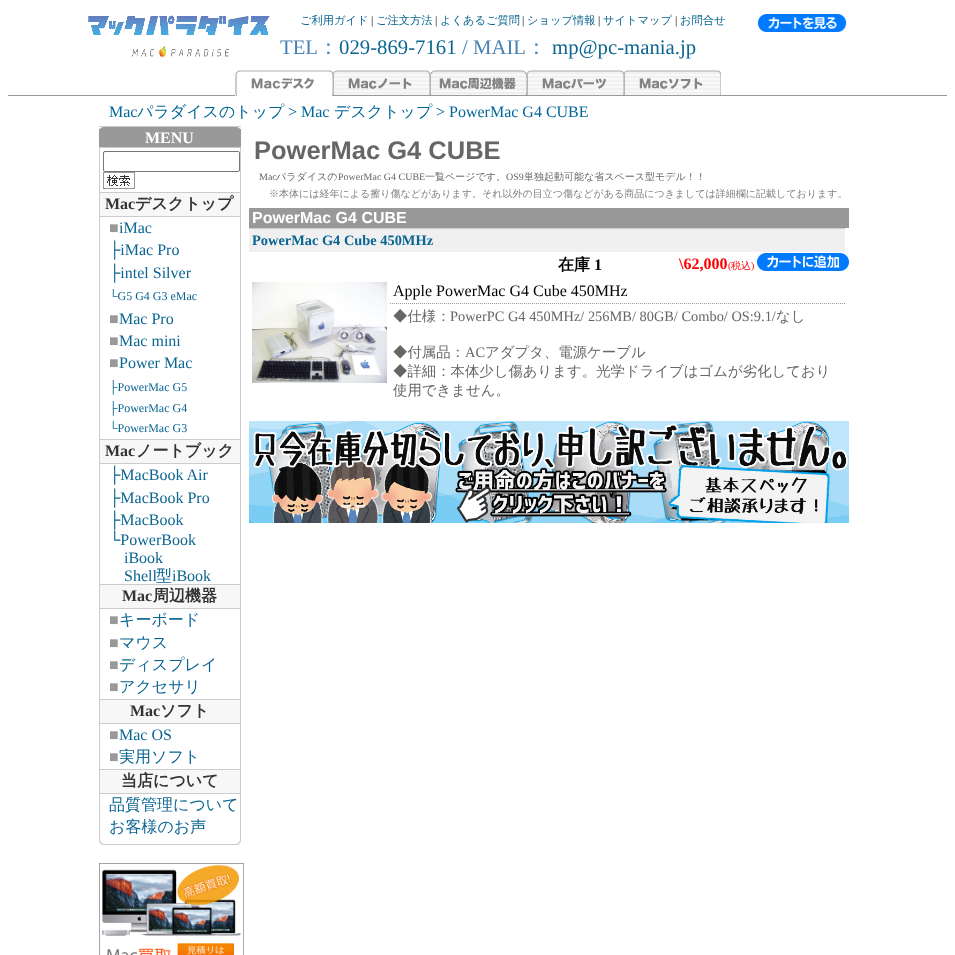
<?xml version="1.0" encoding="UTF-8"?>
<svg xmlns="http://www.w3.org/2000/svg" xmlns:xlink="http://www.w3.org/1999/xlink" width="955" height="955">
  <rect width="100%" height="100%" fill="#ffffff" />
  <image x="88" y="15" width="182" height="42" xlink:href="image1.png" />
  <image x="757" y="14" width="90" height="18" xlink:href="image2.png" />
  <rect x="8" y="95" width="939" height="1" fill="#999999" />
  <image x="235" y="70" width="98" height="26" xlink:href="image3.png" />
  <image x="333" y="70" width="97" height="25" xlink:href="image4.png" />
  <image x="430" y="70" width="97" height="25" xlink:href="image5.png" />
  <image x="527" y="70" width="97" height="25" xlink:href="image6.png" />
  <image x="624" y="70" width="97" height="25" xlink:href="image7.png" />
  <rect x="99" y="126" width="142" height="1" fill="#cccccc" />
  <image x="99" y="127" width="142" height="2" xlink:href="image8.png" />
  <rect x="99" y="129" width="142" height="18" fill="#999999" />
  <rect x="99" y="147" width="142" height="1" fill="#cccccc" />
  <rect x="240" y="147" width="1" height="45" fill="#cccccc" />
  <rect x="99" y="147" width="1" height="45" fill="#cccccc" />
  <rect x="103.5" y="151.5" width="136" height="20" rx="1.5" fill="none" stroke="#767676" />
  <image x="103" y="172" width="32" height="17" xlink:href="image9.png" />
  <rect x="99" y="192" width="142" height="1" fill="#cccccc" />
  <rect x="240" y="192" width="1" height="247" fill="#cccccc" />
  <rect x="99" y="192" width="1" height="247" fill="#cccccc" />
  <rect x="100" y="193" width="140" height="23" fill="#f7f7f7" />
  <rect x="100" y="216" width="140" height="1" fill="#cccccc" />
  <rect x="99" y="439" width="142" height="1" fill="#cccccc" />
  <rect x="240" y="439" width="1" height="145" fill="#cccccc" />
  <rect x="99" y="439" width="1" height="145" fill="#cccccc" />
  <rect x="100" y="440" width="140" height="23" fill="#f7f7f7" />
  <rect x="100" y="463" width="140" height="1" fill="#cccccc" />
  <rect x="99" y="584" width="142" height="1" fill="#cccccc" />
  <rect x="240" y="584" width="1" height="115" fill="#cccccc" />
  <rect x="99" y="584" width="1" height="115" fill="#cccccc" />
  <rect x="100" y="585" width="140" height="23" fill="#f7f7f7" />
  <rect x="100" y="608" width="140" height="1" fill="#cccccc" />
  <rect x="99" y="699" width="142" height="1" fill="#cccccc" />
  <rect x="240" y="699" width="1" height="70" fill="#cccccc" />
  <rect x="99" y="699" width="1" height="70" fill="#cccccc" />
  <rect x="100" y="700" width="140" height="23" fill="#f7f7f7" />
  <rect x="100" y="723" width="140" height="1" fill="#cccccc" />
  <rect x="99" y="769" width="142" height="1" fill="#cccccc" />
  <rect x="240" y="769" width="1" height="70" fill="#cccccc" />
  <rect x="99" y="769" width="1" height="70" fill="#cccccc" />
  <rect x="100" y="770" width="140" height="23" fill="#f7f7f7" />
  <rect x="100" y="793" width="140" height="1" fill="#cccccc" />
  <image x="99" y="839" width="142" height="6" xlink:href="image10.png" />
  <image x="99" y="863" width="145" height="92" xlink:href="image11.png" />
  <rect x="249" y="208" width="600" height="20" fill="#999999" />
  <rect x="249" y="229" width="596" height="23" fill="#f0f0f0" />
  <rect x="249" y="228" width="596" height="1" fill="#cccccc" />
  <image x="757" y="253" width="92" height="18" xlink:href="image12.png" />
  <image x="252" y="282" width="135" height="101" xlink:href="image13.png" />
  <path d="M 390 303.5 h 456" fill="none" stroke="#999999" stroke-dasharray="1 1" />
  <image x="249" y="421" width="600" height="102" xlink:href="image14.png" />
  <text x="300" y="24" style="font-family: WenQuanYi Zen Hei; font-size: 11.25px; font-weight: 500; fill: #0a6591">ご利用ガイド</text>
  <text x="371" y="24" style="font-family: Liberation Serif; font-size: 11.25px; fill: #000000">|</text>
  <text x="376" y="24" style="font-family: WenQuanYi Zen Hei; font-size: 11.25px; font-weight: 500; fill: #0a6591">ご注文方法</text>
  <text x="435" y="24" style="font-family: Liberation Serif; font-size: 11.25px; fill: #000000">|</text>
  <text x="440" y="24" style="font-family: WenQuanYi Zen Hei; font-size: 11.25px; font-weight: 500; fill: #0a6591">よくあるご質問</text>
  <text x="522" y="24" style="font-family: Liberation Serif; font-size: 11.25px; fill: #000000">|</text>
  <text x="527" y="24" style="font-family: WenQuanYi Zen Hei; font-size: 11.25px; font-weight: 500; fill: #0a6591">ショップ情報</text>
  <text x="598" y="24" style="font-family: Liberation Serif; font-size: 11.25px; fill: #000000">|</text>
  <text x="603" y="24" style="font-family: WenQuanYi Zen Hei; font-size: 11.25px; font-weight: 500; fill: #0a6591">サイトマップ</text>
  <text x="675" y="24" style="font-family: Liberation Serif; font-size: 11.25px; fill: #000000">|</text>
  <text x="680" y="24" style="font-family: WenQuanYi Zen Hei; font-size: 11.25px; font-weight: 500; fill: #0a6591">お問合せ</text>
  <text x="280" y="54" style="font-family: Liberation Serif; font-size: 20.75px; fill: #4682b4">TEL</text>
  <text x="318" y="54" style="font-family: WenQuanYi Zen Hei; font-size: 20.75px; font-weight: 500; fill: #4682b4">：</text>
  <text x="339" y="54" style="font-family: Liberation Serif; font-size: 20.75px; fill: #0a6591">029-869-7161</text>
  <text x="462" y="54" style="font-family: Liberation Serif; font-size: 20.75px; fill: #4682b4">/ MAIL</text>
  <text x="526" y="54" style="font-family: WenQuanYi Zen Hei; font-size: 20.75px; font-weight: 500; fill: #4682b4">：</text>
  <text x="552" y="54" style="font-family: Liberation Serif; font-size: 20.75px; fill: #0a6591">mp@pc-mania.jp</text>
  <text x="109" y="117" style="font-family: Liberation Serif; font-size: 16px; fill: #006699">Mac</text>
  <text x="137" y="117" style="font-family: WenQuanYi Zen Hei; font-size: 16px; font-weight: 500; fill: #006699">パラダイスのトップ</text>
  <text x="288" y="117" style="font-family: Liberation Serif; font-size: 16px; fill: #006699">&gt; Mac</text>
  <text x="334" y="117" style="font-family: WenQuanYi Zen Hei; font-size: 16px; font-weight: 500; fill: #006699">デスクトップ</text>
  <text x="436" y="117" style="font-family: Liberation Serif; font-size: 16px; fill: #006699">&gt; PowerMac G4 CUBE</text>
  <text x="145" y="143" style="font-family: Liberation Serif; font-size: 16px; font-weight: bold; fill: #ffffff">MENU</text>
  <text x="105" y="209" style="font-family: Liberation Serif; font-size: 16px; font-weight: bold; fill: #333333">Mac</text>
  <text x="135" y="209" style="font-family: WenQuanYi Zen Hei; font-size: 16px; font-weight: bold; fill: #333333">デスクトップ</text>
  <text x="109" y="233" style="font-family: Liberation Serif; font-size: 16px; font-weight: bold; fill: #999999">■</text>
  <text x="119" y="233" style="font-family: Liberation Serif; font-size: 16px; fill: #0a6591">iMac</text>
  <text x="109" y="255" style="font-family: Liberation Serif; font-size: 16px; fill: #0a6591">├iMac Pro</text>
  <text x="109" y="278" style="font-family: Liberation Serif; font-size: 16px; fill: #0a6591">├intel Silver</text>
  <text x="109" y="300" style="font-family: Liberation Serif; font-size: 12px; fill: #0a6591">└G5 G4 G3 eMac</text>
  <text x="109" y="324" style="font-family: Liberation Serif; font-size: 16px; font-weight: bold; fill: #999999">■</text>
  <text x="119" y="324" style="font-family: Liberation Serif; font-size: 16px; fill: #0a6591">Mac Pro</text>
  <text x="109" y="346" style="font-family: Liberation Serif; font-size: 16px; font-weight: bold; fill: #999999">■</text>
  <text x="119" y="346" style="font-family: Liberation Serif; font-size: 16px; fill: #0a6591">Mac mini</text>
  <text x="109" y="368" style="font-family: Liberation Serif; font-size: 16px; font-weight: bold; fill: #999999">■</text>
  <text x="119" y="368" style="font-family: Liberation Serif; font-size: 16px; fill: #0a6591">Power Mac</text>
  <text x="109" y="391" style="font-family: Liberation Serif; font-size: 12px; fill: #0a6591">├PowerMac G5</text>
  <text x="109" y="412" style="font-family: Liberation Serif; font-size: 12px; fill: #0a6591">├PowerMac G4</text>
  <text x="109" y="432" style="font-family: Liberation Serif; font-size: 12px; fill: #0a6591">└PowerMac G3</text>
  <text x="105" y="456" style="font-family: Liberation Serif; font-size: 16px; font-weight: bold; fill: #333333">Mac</text>
  <text x="136" y="456" style="font-family: WenQuanYi Zen Hei; font-size: 16px; font-weight: bold; fill: #333333">ノートブック</text>
  <text x="109" y="480" style="font-family: Liberation Serif; font-size: 16px; fill: #0a6591">├MacBook Air</text>
  <text x="109" y="503" style="font-family: Liberation Serif; font-size: 16px; fill: #0a6591">├MacBook Pro</text>
  <text x="109" y="525" style="font-family: Liberation Serif; font-size: 16px; fill: #0a6591">├MacBook</text>
  <text x="109" y="545" style="font-family: Liberation Serif; font-size: 16px; fill: #0a6591">└PowerBook</text>
  <text x="124" y="563" style="font-family: Liberation Serif; font-size: 16px; fill: #0a6591">iBook</text>
  <text x="124" y="581" style="font-family: Liberation Serif; font-size: 16px; fill: #0a6591">Shell</text>
  <text x="156" y="581" style="font-family: WenQuanYi Zen Hei; font-size: 16px; font-weight: 500; fill: #0a6591">型</text>
  <text x="172" y="581" style="font-family: Liberation Serif; font-size: 16px; fill: #0a6591">iBook</text>
  <text x="122" y="601" style="font-family: Liberation Serif; font-size: 16px; font-weight: bold; fill: #333333">Mac</text>
  <text x="153" y="601" style="font-family: WenQuanYi Zen Hei; font-size: 16px; font-weight: bold; fill: #333333">周辺機器</text>
  <text x="109" y="625" style="font-family: Liberation Serif; font-size: 16px; font-weight: bold; fill: #999999">■</text>
  <text x="119" y="625" style="font-family: WenQuanYi Zen Hei; font-size: 16px; font-weight: 500; fill: #0a6591">キーボード</text>
  <text x="109" y="648" style="font-family: Liberation Serif; font-size: 16px; font-weight: bold; fill: #999999">■</text>
  <text x="119" y="648" style="font-family: WenQuanYi Zen Hei; font-size: 16px; font-weight: 500; fill: #0a6591">マウス</text>
  <text x="109" y="670" style="font-family: Liberation Serif; font-size: 16px; font-weight: bold; fill: #999999">■</text>
  <text x="119" y="670" style="font-family: WenQuanYi Zen Hei; font-size: 16px; font-weight: 500; fill: #0a6591">ディスプレイ</text>
  <text x="109" y="692" style="font-family: Liberation Serif; font-size: 16px; font-weight: bold; fill: #999999">■</text>
  <text x="119" y="692" style="font-family: WenQuanYi Zen Hei; font-size: 16px; font-weight: 500; fill: #0a6591">アクセサリ</text>
  <text x="130" y="716" style="font-family: Liberation Serif; font-size: 16px; font-weight: bold; fill: #333333">Mac</text>
  <text x="160" y="716" style="font-family: WenQuanYi Zen Hei; font-size: 16px; font-weight: bold; fill: #333333">ソフト</text>
  <text x="109" y="740" style="font-family: Liberation Serif; font-size: 16px; font-weight: bold; fill: #999999">■</text>
  <text x="119" y="740" style="font-family: Liberation Serif; font-size: 16px; fill: #0a6591">Mac OS</text>
  <text x="109" y="762" style="font-family: Liberation Serif; font-size: 16px; font-weight: bold; fill: #999999">■</text>
  <text x="119" y="762" style="font-family: WenQuanYi Zen Hei; font-size: 16px; font-weight: 500; fill: #0a6591">実用ソフト</text>
  <text x="121" y="786" style="font-family: WenQuanYi Zen Hei; font-size: 16px; font-weight: bold; fill: #333333">当店について</text>
  <text x="109" y="810" style="font-family: WenQuanYi Zen Hei; font-size: 16px; font-weight: 500; fill: #0a6591">品質管理について</text>
  <text x="109" y="832" style="font-family: WenQuanYi Zen Hei; font-size: 16px; font-weight: 500; fill: #0a6591">お客様のお声</text>
  <text x="254" y="159" style="font-family: Liberation Sans; font-size: 25.5px; font-weight: bold; fill: #666666">PowerMac G4 CUBE</text>
  <text x="259" y="180" style="font-family: Liberation Serif; font-size: 10px; fill: #666666">Mac</text>
  <text x="276" y="180" style="font-family: WenQuanYi Zen Hei; font-size: 10px; font-weight: 500; fill: #666666">パラダイスの</text>
  <text x="338" y="180" style="font-family: Liberation Serif; font-size: 10px; fill: #666666">PowerMac G4 CUBE</text>
  <text x="425" y="180" style="font-family: WenQuanYi Zen Hei; font-size: 10px; font-weight: 500; fill: #666666">一覧ページです。</text>
  <text x="506" y="180" style="font-family: Liberation Serif; font-size: 10px; fill: #666666">OS9</text>
  <text x="524" y="180" style="font-family: WenQuanYi Zen Hei; font-size: 10px; font-weight: 500; fill: #666666">単独起動可能な省スペース型モデル！！</text>
  <text x="269" y="197" style="font-family: WenQuanYi Zen Hei; font-size: 10px; font-weight: 500; fill: #808080">※本体には経年による擦り傷などがあります。それ以外の目立つ傷などがある商品につきましては詳細欄に記載しております。</text>
  <text x="252" y="223" style="font-family: Liberation Sans; font-size: 16px; font-weight: bold; fill: #ffffff">PowerMac G4 CUBE</text>
  <text x="252" y="245" style="font-family: Liberation Serif; font-size: 14.4px; font-weight: bold; fill: #0a6591">PowerMac G4 Cube 450MHz</text>
  <text x="558" y="270" style="font-family: WenQuanYi Zen Hei; font-size: 16px; font-weight: bold; fill: #000000">在庫</text>
  <text x="594" y="270" style="font-family: Liberation Serif; font-size: 16px; font-weight: bold; fill: #000000">1</text>
  <text x="679" y="269" style="font-family: Liberation Serif; font-size: 16px; font-weight: bold; fill: #ff0000">\62,000</text>
  <text x="728" y="269" style="font-family: Liberation Serif; font-size: 10px; fill: #ff0000">(</text>
  <text x="731" y="269" style="font-family: WenQuanYi Zen Hei; font-size: 10px; font-weight: 500; fill: #ff0000">税込</text>
  <text x="751" y="269" style="font-family: Liberation Serif; font-size: 10px; fill: #ff0000">)</text>
  <text x="393" y="296" style="font-family: Liberation Serif; font-size: 16px; fill: #000000">Apple PowerMac G4 Cube 450MHz</text>
  <text x="393" y="321" style="font-family: WenQuanYi Zen Hei; font-size: 14.4px; font-weight: 500; fill: #666666">◆仕様：</text>
  <text x="450" y="321" style="font-family: Liberation Serif; font-size: 14.4px; fill: #666666">PowerPC G4 450MHz/ 256MB/ 80GB/ Combo/ OS:9.1/</text>
  <text x="776" y="321" style="font-family: WenQuanYi Zen Hei; font-size: 14.4px; font-weight: 500; fill: #666666">なし</text>
  <text x="393" y="357" style="font-family: WenQuanYi Zen Hei; font-size: 14.4px; font-weight: 500; fill: #666666">◆付属品：</text>
  <text x="465" y="357" style="font-family: Liberation Serif; font-size: 14.4px; fill: #666666">AC</text>
  <text x="485" y="357" style="font-family: WenQuanYi Zen Hei; font-size: 14.4px; font-weight: 500; fill: #666666">アダプタ、電源ケーブル</text>
  <text x="393" y="376" style="font-family: WenQuanYi Zen Hei; font-size: 14.4px; font-weight: 500; fill: #666666">◆詳細：本体少し傷あります。光学ドライブはゴムが劣化しており</text>
  <text x="393" y="395" style="font-family: WenQuanYi Zen Hei; font-size: 14.4px; font-weight: 500; fill: #666666">使用できません。</text>
</svg>
